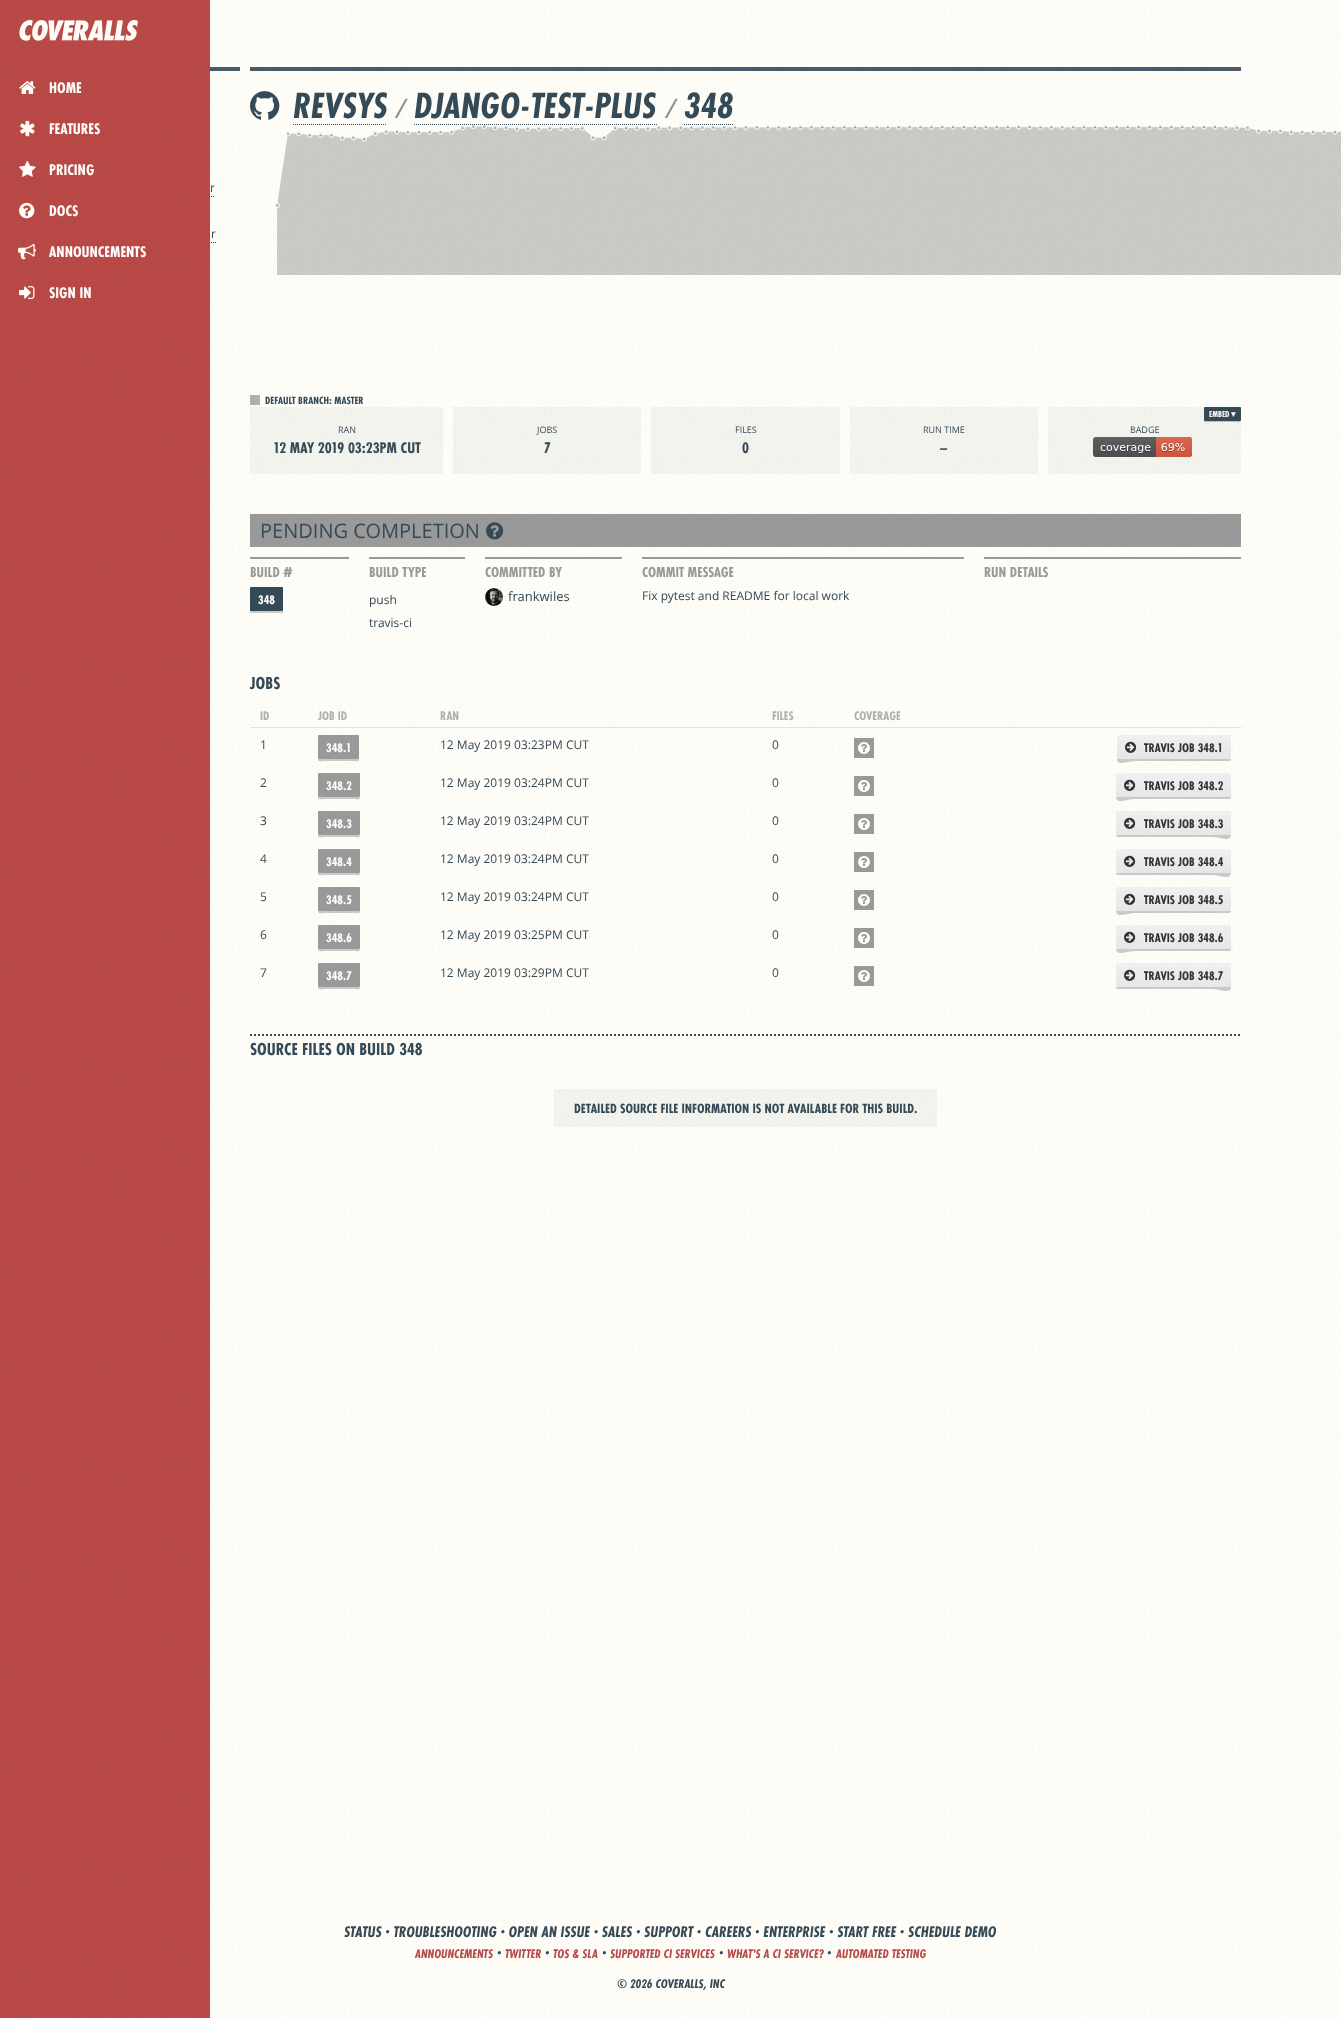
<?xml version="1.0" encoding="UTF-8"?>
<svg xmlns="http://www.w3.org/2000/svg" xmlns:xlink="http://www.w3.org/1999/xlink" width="1341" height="2018">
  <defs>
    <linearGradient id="g1" gradientUnits="userSpaceOnUse" x1="1174" y1="735" x2="1174" y2="759"><stop offset="0" stop-color="#f0f0f0" /><stop offset="1" stop-color="#e6e6e6" /></linearGradient>
    <linearGradient id="g2" gradientUnits="userSpaceOnUse" x1="1174" y1="773" x2="1174" y2="797"><stop offset="0" stop-color="#f0f0f0" /><stop offset="1" stop-color="#e6e6e6" /></linearGradient>
    <linearGradient id="g3" gradientUnits="userSpaceOnUse" x1="1174" y1="811" x2="1174" y2="835"><stop offset="0" stop-color="#f0f0f0" /><stop offset="1" stop-color="#e6e6e6" /></linearGradient>
    <linearGradient id="g4" gradientUnits="userSpaceOnUse" x1="1174" y1="849" x2="1174" y2="873"><stop offset="0" stop-color="#f0f0f0" /><stop offset="1" stop-color="#e6e6e6" /></linearGradient>
    <linearGradient id="g5" gradientUnits="userSpaceOnUse" x1="1174" y1="887" x2="1174" y2="911"><stop offset="0" stop-color="#f0f0f0" /><stop offset="1" stop-color="#e6e6e6" /></linearGradient>
    <linearGradient id="g6" gradientUnits="userSpaceOnUse" x1="1174" y1="925" x2="1174" y2="949"><stop offset="0" stop-color="#f0f0f0" /><stop offset="1" stop-color="#e6e6e6" /></linearGradient>
    <linearGradient id="g7" gradientUnits="userSpaceOnUse" x1="1174" y1="963" x2="1174" y2="987"><stop offset="0" stop-color="#f0f0f0" /><stop offset="1" stop-color="#e6e6e6" /></linearGradient>
  </defs>
  <rect width="100%" height="100%" fill="#fefdf8" />
  <image x="210" y="0" width="1131" height="2018" xlink:href="image1.png" />
  <path d="M 95 196.5 h 120" fill="none" stroke="#354a57" stroke-dasharray="1 1" />
  <path d="M 95 242.5 h 121" fill="none" stroke="#354a57" stroke-dasharray="1 1" />
  <rect width="210" height="2018" fill="#b94947" />
  <image x="0" y="0" width="210" height="2018" xlink:href="image2.png" />
  <rect y="18" width="210" height="29" fill="#b94947" />
  <image x="19" y="20" width="119" height="21" xlink:href="image3.png" />
  <image x="19" y="81" width="17" height="13" xlink:href="image4.png" />
  <image x="20" y="120" width="15" height="17" xlink:href="image5.png" />
  <image x="19" y="160" width="17" height="17" xlink:href="image6.png" />
  <image x="19" y="202" width="16" height="17" xlink:href="image7.png" />
  <image x="18" y="243" width="18" height="17" xlink:href="image8.png" />
  <image x="19" y="286" width="16" height="13" xlink:href="image9.png" />
  <rect x="210" y="67" width="30" height="4" fill="#354a57" fill-opacity="0.9" />
  <rect x="250" y="67" width="991" height="4" fill="#354a57" fill-opacity="0.9" />
  <image x="250" y="91" width="30" height="29" xlink:href="image10.png" />
  <image x="275" y="124" width="1066" height="151" xlink:href="image11.png" />
  <path d="M 293 124.5 h 94" fill="none" stroke="#354a57" stroke-dasharray="1 1" />
  <path d="M 414 124.5 h 243" fill="none" stroke="#354a57" stroke-dasharray="1 1" />
  <path d="M 684 124.5 h 49" fill="none" stroke="#354a57" stroke-dasharray="1 1" />
  <rect x="250" y="395" width="10" height="10" fill="#000000" fill-opacity="0.3" />
  <rect x="1048" y="407" width="193" height="67" fill="#354a57" fill-opacity="0.05" />
  <path d="M 1204 420 c 0 3.5 3 2 7 2 h 23 c 4 0 7 1.5 7 -2 c 0 0.5 -0.5 1 -1 1 h -35 c -0.5 0 -1 -0.5 -1 -1 z" fill="#000000" fill-opacity="0.2" />
  <rect x="1204" y="407" width="37" height="14" rx="1" fill="#354a57" />
  <image x="1093" y="437" width="99" height="20" xlink:href="image12.png" />
  <rect x="250" y="407" width="193" height="67" fill="#354a57" fill-opacity="0.05" />
  <rect x="453" y="407" width="188" height="67" fill="#354a57" fill-opacity="0.05" />
  <rect x="651" y="407" width="189" height="67" fill="#354a57" fill-opacity="0.05" />
  <rect x="850" y="407" width="188" height="67" fill="#354a57" fill-opacity="0.05" />
  <rect x="250" y="514" width="991" height="33" fill="#999999" />
  <image x="486" y="522" width="18" height="18" xlink:href="image13.png" />
  <rect x="250" y="557" width="99" height="2" fill="#999999" />
  <path d="M 250 610 c 0 4.5 0.5 3 6 3 h 21 c 5.5 0 6 1.5 6 -3 c 0 2 -4 1 -6 1 h -26.5 z" fill="#000000" fill-opacity="0.2" />
  <rect x="250" y="587" width="33" height="24" rx="1" fill="#354a57" />
  <rect x="369" y="557" width="96" height="2" fill="#999999" />
  <rect x="485" y="557" width="137" height="2" fill="#999999" />
  <image x="485" y="588" width="18" height="18" xlink:href="image14.png" />
  <rect x="642" y="557" width="322" height="2" fill="#999999" />
  <rect x="984" y="557" width="257" height="2" fill="#999999" />
  <rect x="250" y="727" width="58" height="1" fill="#000000" fill-opacity="0.1" />
  <rect x="308" y="727" width="122" height="1" fill="#000000" fill-opacity="0.1" />
  <rect x="430" y="727" width="332" height="1" fill="#000000" fill-opacity="0.1" />
  <rect x="762" y="727" width="82" height="1" fill="#000000" fill-opacity="0.1" />
  <rect x="844" y="727" width="132" height="1" fill="#000000" fill-opacity="0.1" />
  <rect x="976" y="727" width="265" height="1" fill="#000000" fill-opacity="0.1" />
  <path d="M 318 758 c 0 5 2 3 8 3 h 26 c 5 0 7 2 7 -3 l -1 1 h -40 z" fill="#000000" fill-opacity="0.2" />
  <rect x="318" y="735" width="41" height="24" rx="1" fill="#999999" />
  <rect x="854" y="738" width="20" height="20" fill="#999999" />
  <image x="858" y="742" width="12" height="12" xlink:href="image15.png" />
  <path d="M 1117 758 c 0 9 9 3 20 3 h 93 c 1 -1 1 -2 1 -3 l -1 1 h -113 z" fill="#000000" fill-opacity="0.2" />
  <rect x="1117" y="735" width="114" height="24" rx="1" fill="url(#g1)" />
  <image x="1125" y="741" width="12" height="12" xlink:href="image16.png" />
  <path d="M 318 796 c 0 5 2 3 8 3 h 26 c 6 0 8 2 8 -3 l -1 1 h -41 z" fill="#000000" fill-opacity="0.2" />
  <rect x="318" y="773" width="42" height="24" rx="1" fill="#999999" />
  <rect x="854" y="776" width="20" height="20" fill="#999999" />
  <image x="858" y="780" width="12" height="12" xlink:href="image15.png" />
  <path d="M 1116 796 c 0 9 10 3 20 3 h 94 c 1 -1 1 -2 1 -3 l -1 1 h -114 z" fill="#000000" fill-opacity="0.2" />
  <rect x="1116" y="773" width="115" height="24" rx="1" fill="url(#g2)" />
  <image x="1124" y="779" width="12" height="12" xlink:href="image16.png" />
  <path d="M 318 834 c 0 5 2 3 8 3 h 26 c 6 0 8 2 8 -3 l -1 1 h -41 z" fill="#000000" fill-opacity="0.2" />
  <rect x="318" y="811" width="42" height="24" rx="1" fill="#999999" />
  <rect x="854" y="814" width="20" height="20" fill="#999999" />
  <image x="858" y="818" width="12" height="12" xlink:href="image15.png" />
  <path d="M 1116 834 c 0 1 0 2 1 3 h 94 c 10 0 20 6 20 -3 l -1 1 h -114 z" fill="#000000" fill-opacity="0.2" />
  <rect x="1116" y="811" width="115" height="24" rx="1" fill="url(#g3)" />
  <image x="1124" y="817" width="12" height="12" xlink:href="image16.png" />
  <path d="M 318 872 c 0 5 2 3 8 3 h 26 c 6 0 8 2 8 -3 l -1 1 h -41 z" fill="#000000" fill-opacity="0.2" />
  <rect x="318" y="849" width="42" height="24" rx="1" fill="#999999" />
  <rect x="854" y="852" width="20" height="20" fill="#999999" />
  <image x="858" y="856" width="12" height="12" xlink:href="image15.png" />
  <path d="M 1116 872 c 0 1 0 2 1 3 h 94 c 10 0 20 6 20 -3 l -1 1 h -114 z" fill="#000000" fill-opacity="0.2" />
  <rect x="1116" y="849" width="115" height="24" rx="1" fill="url(#g4)" />
  <image x="1124" y="855" width="12" height="12" xlink:href="image16.png" />
  <path d="M 318 910 c 0 5 2 3 8 3 h 26 c 6 0 8 2 8 -3 l -1 1 h -41 z" fill="#000000" fill-opacity="0.2" />
  <rect x="318" y="887" width="42" height="24" rx="1" fill="#999999" />
  <rect x="854" y="890" width="20" height="20" fill="#999999" />
  <image x="858" y="894" width="12" height="12" xlink:href="image15.png" />
  <path d="M 1116 910 c 0 9 10 3 20 3 h 94 c 1 -1 1 -2 1 -3 l -1 1 h -114 z" fill="#000000" fill-opacity="0.2" />
  <rect x="1116" y="887" width="115" height="24" rx="1" fill="url(#g5)" />
  <image x="1124" y="893" width="12" height="12" xlink:href="image16.png" />
  <path d="M 318 948 c 0 5 2 3 8 3 h 26 c 6 0 8 2 8 -3 l -1 1 h -41 z" fill="#000000" fill-opacity="0.2" />
  <rect x="318" y="925" width="42" height="24" rx="1" fill="#999999" />
  <rect x="854" y="928" width="20" height="20" fill="#999999" />
  <image x="858" y="932" width="12" height="12" xlink:href="image15.png" />
  <path d="M 1116 948 c 0 9 10 3 20 3 h 94 c 1 -1 1 -2 1 -3 l -1 1 h -114 z" fill="#000000" fill-opacity="0.2" />
  <rect x="1116" y="925" width="115" height="24" rx="1" fill="url(#g6)" />
  <image x="1124" y="931" width="12" height="12" xlink:href="image16.png" />
  <path d="M 318 986 c 0 5 2 3 8 3 h 26 c 6 0 8 2 8 -3 l -1 1 h -41 z" fill="#000000" fill-opacity="0.2" />
  <rect x="318" y="963" width="42" height="24" rx="1" fill="#999999" />
  <rect x="854" y="966" width="20" height="20" fill="#999999" />
  <image x="858" y="970" width="12" height="12" xlink:href="image15.png" />
  <path d="M 1116 986 c 0 1 0 2 1 3 h 94 c 10 0 20 6 20 -3 l -1 1 h -114 z" fill="#000000" fill-opacity="0.2" />
  <rect x="1116" y="963" width="115" height="24" rx="1" fill="url(#g7)" />
  <image x="1124" y="969" width="12" height="12" xlink:href="image16.png" />
  <path d="M 250 1035 h 991" fill="none" stroke="#354a57" stroke-width="2" stroke-dasharray="2 2" />
  <rect x="554" y="1089" width="383" height="38" fill="#354a57" fill-opacity="0.05" />
  <text x="49" y="93" style="font-family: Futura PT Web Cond; font-size: 16px; font-weight: bold; fill: #fffdfa">HOME</text>
  <text x="49" y="134" style="font-family: Futura PT Web Cond; font-size: 16px; font-weight: bold; fill: #fffdfa">FEATURES</text>
  <text x="49" y="175" style="font-family: Futura PT Web Cond; font-size: 16px; font-weight: bold; fill: #fffdfa">PRICING</text>
  <text x="49" y="216" style="font-family: Futura PT Web Cond; font-size: 16px; font-weight: bold; fill: #fffdfa">DOCS</text>
  <text x="49" y="257" style="font-family: Futura PT Web Cond; font-size: 16px; font-weight: bold; fill: #fffdfa">ANNOUNCEMENTS</text>
  <text x="49" y="298" style="font-family: Futura PT Web Cond; font-size: 16px; font-weight: bold; fill: #fffdfa">SIGN IN</text>
  <text x="210" y="192" style="font-family: Open Sans; font-size: 12px; fill: #354a57">r</text>
  <text x="211" y="238" style="font-family: Open Sans; font-size: 12px; fill: #354a57">r</text>
  <text x="293" y="118" style="font-family: Futura PT Web Cond; font-size: 38px; font-weight: bold; font-style: italic; fill: #354a57">REVSYS</text>
  <text x="396" y="118" style="font-family: Open Sans; font-size: 27px; font-style: italic; fill: #859197">/</text>
  <text x="414" y="118" style="font-family: Futura PT Web Cond; font-size: 38px; font-weight: bold; font-style: italic; fill: #354a57">DJANGO-TEST-PLUS</text>
  <text x="666" y="118" style="font-family: Open Sans; font-size: 27px; font-style: italic; fill: #859197">/</text>
  <text x="684" y="118" style="font-family: Futura PT Web Cond; font-size: 38px; font-weight: bold; font-style: italic; fill: #354a57">348</text>
  <text x="265" y="404" style="font-family: Futura PT Web Cond; font-size: 11px; font-weight: bold; fill: #354a57">DEFAULT BRANCH: MASTER</text>
  <text x="1209" y="417" style="font-family: Futura PT Web Cond; font-size: 9px; font-weight: bold; fill: #fffdfa">EMBED</text>
  <text x="1231" y="417" style="font-family: DejaVu Sans; font-size: 9px; font-weight: bold; fill: #fffdfa">▾</text>
  <text x="1130" y="433" style="font-family: Open Sans; font-size: 9px; fill: #354a57">BADGE</text>
  <text x="338" y="433" style="font-family: Open Sans; font-size: 9px; fill: #354a57">RAN</text>
  <text x="273" y="453" style="font-family: Futura PT Web Cond; font-size: 16px; font-weight: bold; fill: #354a57">12 MAY 2019 03:23PM CUT</text>
  <text x="537" y="433" style="font-family: Open Sans; font-size: 9px; fill: #354a57">JOBS</text>
  <text x="544" y="453" style="font-family: Futura PT Web Cond; font-size: 16px; font-weight: bold; fill: #354a57">7</text>
  <text x="735" y="433" style="font-family: Open Sans; font-size: 9px; fill: #354a57">FILES</text>
  <text x="742" y="453" style="font-family: Futura PT Web Cond; font-size: 16px; font-weight: bold; fill: #354a57">0</text>
  <text x="923" y="433" style="font-family: Open Sans; font-size: 9px; fill: #354a57">RUN TIME</text>
  <text x="939" y="453" style="font-family: Futura PT Web Cond; font-size: 16px; font-weight: bold; fill: #354a57">–</text>
  <text x="260" y="538" style="font-family: Open Sans; font-size: 20px; fill: #354a57">PENDING COMPLETION</text>
  <text x="250" y="577" style="font-family: Futura PT Web Cond; font-size: 15px; font-weight: bold; fill: #999999">BUILD #</text>
  <text x="258" y="604" style="font-family: Futura PT Web Cond; font-size: 13px; font-weight: bold; fill: #fffdfa">348</text>
  <text x="369" y="577" style="font-family: Futura PT Web Cond; font-size: 15px; font-weight: bold; fill: #999999">BUILD TYPE</text>
  <text x="369" y="604" style="font-family: Open Sans; font-size: 12px; fill: #354a57">push</text>
  <text x="369" y="627" style="font-family: Open Sans; font-size: 12px; fill: #354a57">travis-ci</text>
  <text x="485" y="577" style="font-family: Futura PT Web Cond; font-size: 15px; font-weight: bold; fill: #999999">COMMITTED BY</text>
  <text x="508" y="601" style="font-family: Open Sans; font-size: 13px; fill: #354a57">frankwiles</text>
  <text x="642" y="577" style="font-family: Futura PT Web Cond; font-size: 15px; font-weight: bold; fill: #999999">COMMIT MESSAGE</text>
  <text x="642" y="600" style="font-family: Open Sans; font-size: 12px; fill: #354a57">Fix pytest and README for local work</text>
  <text x="984" y="577" style="font-family: Futura PT Web Cond; font-size: 15px; font-weight: bold; fill: #999999">RUN DETAILS</text>
  <text x="250" y="689" style="font-family: Futura PT Web Cond; font-size: 18px; font-weight: bold; fill: #354a57">JOBS</text>
  <text x="260" y="720" style="font-family: Futura PT Web Cond; font-size: 13px; font-weight: bold; fill: #b1b0ac">ID</text>
  <text x="318" y="720" style="font-family: Futura PT Web Cond; font-size: 13px; font-weight: bold; fill: #b1b0ac">JOB ID</text>
  <text x="440" y="720" style="font-family: Futura PT Web Cond; font-size: 13px; font-weight: bold; fill: #b1b0ac">RAN</text>
  <text x="772" y="720" style="font-family: Futura PT Web Cond; font-size: 13px; font-weight: bold; fill: #b1b0ac">FILES</text>
  <text x="854" y="720" style="font-family: Futura PT Web Cond; font-size: 13px; font-weight: bold; fill: #b1b0ac">COVERAGE</text>
  <text x="260" y="749" style="font-family: Open Sans; font-size: 12px; fill: #354a57">1</text>
  <text x="326" y="752" style="font-family: Futura PT Web Cond; font-size: 13px; font-weight: bold; fill: #fffdfa">348.1</text>
  <text x="440" y="749" style="font-family: Open Sans; font-size: 12px; fill: #354a57">12 May 2019 03:23PM CUT</text>
  <text x="772" y="749" style="font-family: Open Sans; font-size: 12px; fill: #354a57">0</text>
  <text x="1144" y="752" style="font-family: Futura PT Web Cond; font-size: 13px; font-weight: bold; fill: #333333">TRAVIS JOB 348.1</text>
  <text x="260" y="787" style="font-family: Open Sans; font-size: 12px; fill: #354a57">2</text>
  <text x="326" y="790" style="font-family: Futura PT Web Cond; font-size: 13px; font-weight: bold; fill: #fffdfa">348.2</text>
  <text x="440" y="787" style="font-family: Open Sans; font-size: 12px; fill: #354a57">12 May 2019 03:24PM CUT</text>
  <text x="772" y="787" style="font-family: Open Sans; font-size: 12px; fill: #354a57">0</text>
  <text x="1144" y="790" style="font-family: Futura PT Web Cond; font-size: 13px; font-weight: bold; fill: #333333">TRAVIS JOB 348.2</text>
  <text x="260" y="825" style="font-family: Open Sans; font-size: 12px; fill: #354a57">3</text>
  <text x="326" y="828" style="font-family: Futura PT Web Cond; font-size: 13px; font-weight: bold; fill: #fffdfa">348.3</text>
  <text x="440" y="825" style="font-family: Open Sans; font-size: 12px; fill: #354a57">12 May 2019 03:24PM CUT</text>
  <text x="772" y="825" style="font-family: Open Sans; font-size: 12px; fill: #354a57">0</text>
  <text x="1144" y="828" style="font-family: Futura PT Web Cond; font-size: 13px; font-weight: bold; fill: #333333">TRAVIS JOB 348.3</text>
  <text x="260" y="863" style="font-family: Open Sans; font-size: 12px; fill: #354a57">4</text>
  <text x="326" y="866" style="font-family: Futura PT Web Cond; font-size: 13px; font-weight: bold; fill: #fffdfa">348.4</text>
  <text x="440" y="863" style="font-family: Open Sans; font-size: 12px; fill: #354a57">12 May 2019 03:24PM CUT</text>
  <text x="772" y="863" style="font-family: Open Sans; font-size: 12px; fill: #354a57">0</text>
  <text x="1144" y="866" style="font-family: Futura PT Web Cond; font-size: 13px; font-weight: bold; fill: #333333">TRAVIS JOB 348.4</text>
  <text x="260" y="901" style="font-family: Open Sans; font-size: 12px; fill: #354a57">5</text>
  <text x="326" y="904" style="font-family: Futura PT Web Cond; font-size: 13px; font-weight: bold; fill: #fffdfa">348.5</text>
  <text x="440" y="901" style="font-family: Open Sans; font-size: 12px; fill: #354a57">12 May 2019 03:24PM CUT</text>
  <text x="772" y="901" style="font-family: Open Sans; font-size: 12px; fill: #354a57">0</text>
  <text x="1144" y="904" style="font-family: Futura PT Web Cond; font-size: 13px; font-weight: bold; fill: #333333">TRAVIS JOB 348.5</text>
  <text x="260" y="939" style="font-family: Open Sans; font-size: 12px; fill: #354a57">6</text>
  <text x="326" y="942" style="font-family: Futura PT Web Cond; font-size: 13px; font-weight: bold; fill: #fffdfa">348.6</text>
  <text x="440" y="939" style="font-family: Open Sans; font-size: 12px; fill: #354a57">12 May 2019 03:25PM CUT</text>
  <text x="772" y="939" style="font-family: Open Sans; font-size: 12px; fill: #354a57">0</text>
  <text x="1144" y="942" style="font-family: Futura PT Web Cond; font-size: 13px; font-weight: bold; fill: #333333">TRAVIS JOB 348.6</text>
  <text x="260" y="977" style="font-family: Open Sans; font-size: 12px; fill: #354a57">7</text>
  <text x="326" y="980" style="font-family: Futura PT Web Cond; font-size: 13px; font-weight: bold; fill: #fffdfa">348.7</text>
  <text x="440" y="977" style="font-family: Open Sans; font-size: 12px; fill: #354a57">12 May 2019 03:29PM CUT</text>
  <text x="772" y="977" style="font-family: Open Sans; font-size: 12px; fill: #354a57">0</text>
  <text x="1144" y="980" style="font-family: Futura PT Web Cond; font-size: 13px; font-weight: bold; fill: #333333">TRAVIS JOB 348.7</text>
  <text x="250" y="1055" style="font-family: Futura PT Web Cond; font-size: 18px; font-weight: bold; fill: #354a57">SOURCE FILES ON BUILD 348</text>
  <text x="574" y="1113" style="font-family: Futura PT Web Cond; font-size: 14px; font-weight: bold; fill: #354a57">DETAILED SOURCE FILE INFORMATION IS NOT AVAILABLE FOR THIS BUILD.</text>
  <text x="344" y="1937" style="font-family: Futura PT Web Cond; font-size: 16px; font-weight: bold; font-style: italic; fill: #354a57">STATUS · TROUBLESHOOTING · OPEN AN ISSUE · SALES · SUPPORT · CAREERS · ENTERPRISE · START FREE · SCHEDULE DEMO</text>
  <text x="415" y="1958" style="font-family: Futura PT Web Cond; font-size: 13px; font-weight: bold; font-style: italic; fill: #b94947">ANNOUNCEMENTS</text>
  <text x="497" y="1958" style="font-family: Futura PT Web Cond; font-size: 16px; font-weight: bold; font-style: italic; fill: #354a57">·</text>
  <text x="505" y="1958" style="font-family: Futura PT Web Cond; font-size: 13px; font-weight: bold; font-style: italic; fill: #b94947">TWITTER</text>
  <text x="545" y="1958" style="font-family: Futura PT Web Cond; font-size: 16px; font-weight: bold; font-style: italic; fill: #354a57">·</text>
  <text x="553" y="1958" style="font-family: Futura PT Web Cond; font-size: 13px; font-weight: bold; font-style: italic; fill: #b94947">TOS &amp; SLA</text>
  <text x="602" y="1958" style="font-family: Futura PT Web Cond; font-size: 16px; font-weight: bold; font-style: italic; fill: #354a57">·</text>
  <text x="610" y="1958" style="font-family: Futura PT Web Cond; font-size: 13px; font-weight: bold; font-style: italic; fill: #b94947">SUPPORTED CI SERVICES</text>
  <text x="719" y="1958" style="font-family: Futura PT Web Cond; font-size: 16px; font-weight: bold; font-style: italic; fill: #354a57">·</text>
  <text x="727" y="1958" style="font-family: Futura PT Web Cond; font-size: 13px; font-weight: bold; font-style: italic; fill: #b94947">WHAT'S A CI SERVICE?</text>
  <text x="827" y="1958" style="font-family: Futura PT Web Cond; font-size: 16px; font-weight: bold; font-style: italic; fill: #354a57">·</text>
  <text x="836" y="1958" style="font-family: Futura PT Web Cond; font-size: 13px; font-weight: bold; font-style: italic; fill: #b94947">AUTOMATED TESTING</text>
  <text x="617" y="1988" style="font-family: Futura PT Web Cond; font-size: 13px; font-weight: bold; font-style: italic; fill: #354a57">© 2026 COVERALLS, INC</text>
</svg>
